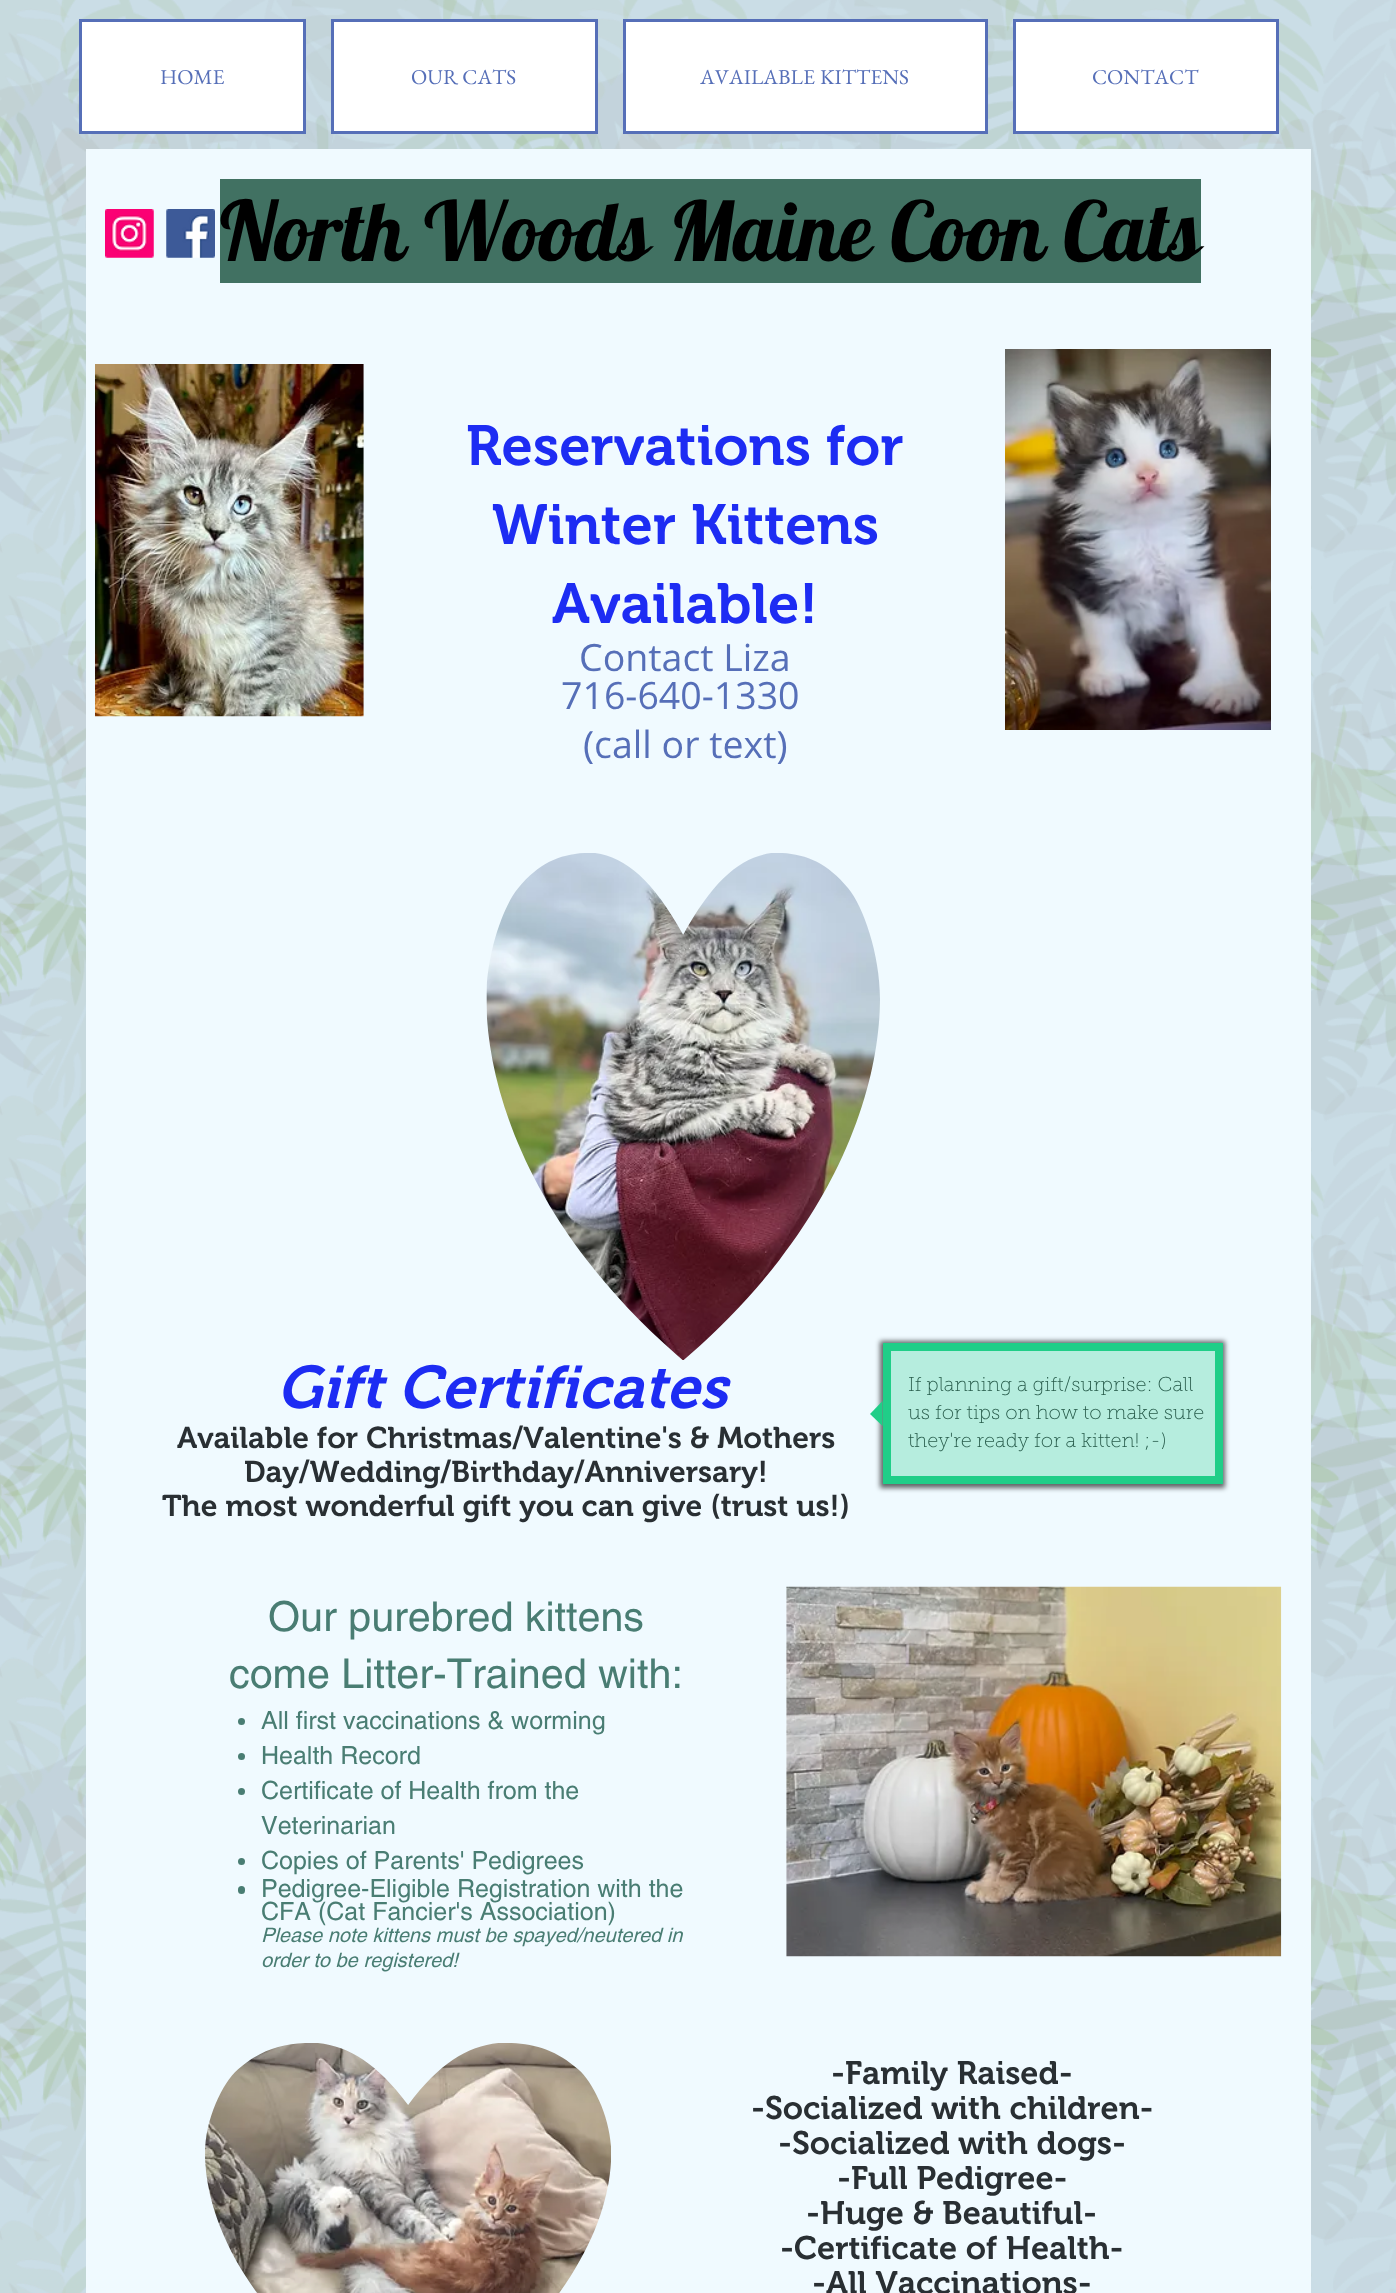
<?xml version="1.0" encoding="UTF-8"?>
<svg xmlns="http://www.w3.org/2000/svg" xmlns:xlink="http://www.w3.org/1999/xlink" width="1396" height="2293">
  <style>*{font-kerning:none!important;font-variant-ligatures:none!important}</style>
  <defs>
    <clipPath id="clip1"><path d="M 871 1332 h 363 v 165 h -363 z m 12 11 h 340 v 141 h -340 z" clip-rule="evenodd" /></clipPath>
  </defs>
  <rect width="100%" height="100%" fill="#cadde6" />
  <image x="0" y="0" width="1396" height="2293" xlink:href="image1.png" />
  <rect x="80.5" y="20.5" width="224" height="112" fill="#ffffff" stroke="#566fb8" stroke-width="3" />
  <rect x="332.5" y="20.5" width="264" height="112" fill="#ffffff" stroke="#566fb8" stroke-width="3" />
  <rect x="624.5" y="20.5" width="362" height="112" fill="#ffffff" stroke="#566fb8" stroke-width="3" />
  <rect x="1014.5" y="20.5" width="263" height="112" fill="#ffffff" stroke="#566fb8" stroke-width="3" />
  <rect x="86" y="149" width="1225" height="2144" fill="#f0faff" />
  <image x="105" y="209" width="49" height="49" xlink:href="image2.png" />
  <image x="166" y="209" width="49" height="49" xlink:href="image3.png" />
  <rect x="220" y="179" width="981" height="104" fill="#417162" />
  <image x="95" y="364" width="269" height="353" xlink:href="image4.png" />
  <image x="1005" y="349" width="266" height="381" xlink:href="image5.png" />
  <image x="486" y="853" width="394" height="507" xlink:href="image6.png" />
  <g clip-path="url(#clip1)">
    <rect x="880" y="1341" width="345" height="147" fill="#000000" fill-opacity="0.6" filter="blur(2.5px)" />
  </g>
  <path d="M 882.5 1401 v 25 l -12.5 -12 z" fill="#20ce88" />
  <circle cx="241.5" cy="1721.5" r="3.5" fill="#497d73" />
  <circle cx="241.5" cy="1756.5" r="3.5" fill="#497d73" />
  <circle cx="241.5" cy="1791.5" r="3.5" fill="#497d73" />
  <circle cx="241.5" cy="1861.5" r="3.5" fill="#497d73" />
  <rect x="238" y="1886" width="7" height="8" rx="3.5" fill="#497d73" />
  <image x="786" y="1586" width="496" height="371" xlink:href="image7.png" />
  <image x="205" y="2043" width="406" height="250" xlink:href="image8.png" />
  <text x="160" y="84" style="font-family: EB Garamond; font-size: 21.25px; fill: #566fb8">HOME</text>
  <text x="411" y="84" style="font-family: EB Garamond; font-size: 21.25px; fill: #566fb8">OUR CATS</text>
  <text x="700" y="84" style="font-family: EB Garamond; font-size: 21.25px; fill: #566fb8">AVAILABLE</text>
  <text x="820" y="84" style="font-family: EB Garamond; font-size: 21.25px; fill: #566fb8">KITTENS</text>
  <text x="1092" y="84" style="font-family: EB Garamond; font-size: 21.25px; fill: #566fb8">CONTACT</text>
  <text x="220" y="261" style="font-family: Lobster; font-size: 82.5px; fill: #000000">North Woods Maine Coon</text>
  <text x="1063" y="261" style="font-family: Lobster; font-size: 82.5px; fill: #000000">Cats</text>
  <text x="466" y="465" style="font-family: 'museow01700'; font-size: 56.25px; font-weight: 600; fill: #1d2cf3">Reservations for</text>
  <text x="492" y="544" style="font-family: 'museow01700'; font-size: 56.25px; font-weight: 600; fill: #1d2cf3">Winter Kittens</text>
  <text x="552" y="623" style="font-family: 'museow01700'; font-size: 56.25px; font-weight: 600; fill: #1d2cf3">Available!</text>
  <text x="579" y="671" style="font-family: Open Sans; font-size: 37.5px; fill: #566fb8">Contact Liza</text>
  <text x="561" y="709" style="font-family: Open Sans; font-size: 37.5px; fill: #566fb8">716-640-1330</text>
  <text x="583" y="758" style="font-family: Open Sans; font-size: 37.5px; fill: #566fb8">(call or text)</text>
  <text x="277" y="1408" style="font-family: 'museow01700'; font-size: 60px; font-weight: 600; font-style: italic; fill: #1d2cf3">Gift Certificates</text>
  <text x="177" y="1448" style="font-family: 'museow01700'; font-size: 30px; font-weight: 600; fill: #292f33">Available for Christmas/Valentine's &amp; Mothers</text>
  <text x="244" y="1482" style="font-family: 'museow01700'; font-size: 30px; font-weight: 600; fill: #292f33">Day/Wedding/Birthday/Anniversary!</text>
  <text x="162" y="1516" style="font-family: 'museow01700'; font-size: 30px; font-weight: 600; fill: #292f33">The most wonderful gift you can give (trust us!)</text>
  <text x="908" y="1391" style="font-family: 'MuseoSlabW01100'; font-size: 20px; font-weight: 100; fill: #292f33">If planning a gift/surprise: Call</text>
  <text x="908" y="1419" style="font-family: 'MuseoSlabW01100'; font-size: 20px; font-weight: 100; fill: #292f33">us for tips on how to make sure</text>
  <text x="908" y="1447" style="font-family: 'MuseoSlabW01100'; font-size: 20px; font-weight: 100; fill: #292f33">they're ready for a kitten! ;-)</text>
  <rect x="887" y="1347" width="332" height="133" fill="#20ce88" fill-opacity="0.28" stroke="#20ce88" stroke-width="8" />
  <text x="268" y="1631" style="font-family: helvetica; font-size: 41.25px; fill: #497d73">Our purebred kittens</text>
  <text x="229" y="1688" style="font-family: helvetica; font-size: 41.25px; fill: #497d73">come Litter-Trained with:</text>
  <text x="261" y="1729" style="font-family: helvetica; font-size: 25px; fill: #497d73">All first vaccinations &amp; worming</text>
  <text x="261" y="1764" style="font-family: helvetica; font-size: 25px; fill: #497d73">Health Record</text>
  <text x="261" y="1799" style="font-family: helvetica; font-size: 25px; fill: #497d73">Certificate of Health from the</text>
  <text x="261" y="1834" style="font-family: helvetica; font-size: 25px; fill: #497d73">Veterinarian</text>
  <text x="261" y="1869" style="font-family: helvetica; font-size: 25px; fill: #497d73">Copies of Parents' Pedigrees</text>
  <text x="261" y="1897" style="font-family: helvetica; font-size: 25px; fill: #497d73">Pedigree-Eligible Registration with the</text>
  <text x="261" y="1920" style="font-family: helvetica; font-size: 25px; fill: #497d73">CFA (Cat Fancier's Association)</text>
  <text x="261" y="1942" style="font-family: helvetica; font-size: 20px; font-style: italic; fill: #497d73">Please note kittens must be spayed/neutered in</text>
  <text x="261" y="1967" style="font-family: helvetica; font-size: 20px; font-style: italic; fill: #497d73">order to be registered!</text>
  <text x="831" y="2084" style="font-family: 'museow01700'; font-size: 32.5px; font-weight: 600; fill: #292f33">-Family Raised-</text>
  <text x="751" y="2119" style="font-family: 'museow01700'; font-size: 32.5px; font-weight: 600; fill: #292f33">-Socialized with children-</text>
  <text x="778" y="2154" style="font-family: 'museow01700'; font-size: 32.5px; font-weight: 600; fill: #292f33">-Socialized with dogs-</text>
  <text x="837" y="2189" style="font-family: 'museow01700'; font-size: 32.5px; font-weight: 600; fill: #292f33">-Full Pedigree-</text>
  <text x="806" y="2224" style="font-family: 'museow01700'; font-size: 32.5px; font-weight: 600; fill: #292f33">-Huge &amp; Beautiful-</text>
  <text x="780" y="2259" style="font-family: 'museow01700'; font-size: 32.5px; font-weight: 600; fill: #292f33">-Certificate of Health-</text>
  <text x="812" y="2294" style="font-family: 'museow01700'; font-size: 32.5px; font-weight: 600; fill: #292f33">-All Vaccinations-</text>
</svg>
